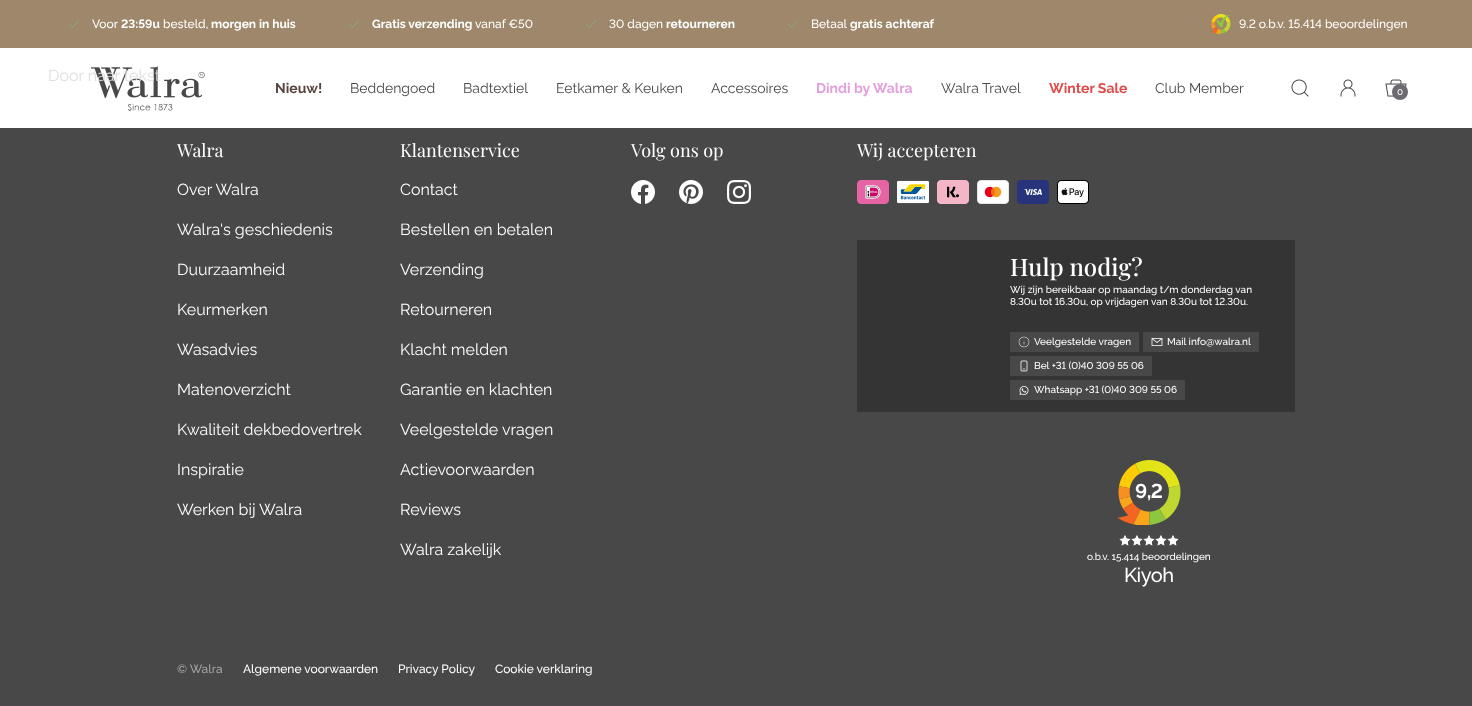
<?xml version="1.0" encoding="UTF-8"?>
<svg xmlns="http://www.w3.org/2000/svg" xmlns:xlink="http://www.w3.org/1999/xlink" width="1472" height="706">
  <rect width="100%" height="100%" fill="#484848" />
  <rect width="1472" height="48" fill="#9e876b" />
  <path d="M 69.5 24.5 l 3 3 l 6 -6.5" fill="none" stroke="#8ab56f" stroke-width="0.8" stroke-linecap="square" />
  <path d="M 349.5 24.5 l 3 3 l 6 -6.5" fill="none" stroke="#8ab56f" stroke-width="0.8" stroke-linecap="square" />
  <path d="M 586.5 24.5 l 3 3 l 6 -6.5" fill="none" stroke="#8ab56f" stroke-width="0.8" stroke-linecap="square" />
  <path d="M 788.5 24.5 l 3 3 l 6 -6.5" fill="none" stroke="#8ab56f" stroke-width="0.8" stroke-linecap="square" />
  <image x="1211" y="14" width="20" height="20" xlink:href="image1.png" />
  <rect y="48" width="1472" height="80" fill="#ffffff" />
  <image x="90" y="66" width="115" height="45" xlink:href="image2.png" />
  <image x="1291" y="79" width="18" height="18" xlink:href="image3.png" />
  <image x="1340" y="79" width="16" height="18" xlink:href="image4.png" />
  <image x="1385" y="79" width="22" height="18" xlink:href="image5.png" />
  <circle cx="1400" cy="92" r="8" fill="#6e6a72" />
  <image x="631" y="180" width="24" height="24" xlink:href="image6.png" />
  <image x="679" y="180" width="24" height="24" xlink:href="image7.png" />
  <image x="727" y="180" width="24" height="24" xlink:href="image8.png" />
  <image x="857" y="180" width="32" height="24" xlink:href="image9.png" />
  <image x="897" y="180" width="32" height="24" xlink:href="image10.png" />
  <image x="937" y="180" width="32" height="24" xlink:href="image11.png" />
  <image x="977" y="180" width="32" height="24" xlink:href="image12.png" />
  <image x="1017" y="180" width="32" height="24" xlink:href="image13.png" />
  <image x="1057" y="180" width="32" height="24" xlink:href="image14.png" />
  <rect x="857" y="240" width="438" height="172" fill="#343434" />
  <rect x="1010" y="332" width="129" height="20" fill="#484848" />
  <image x="1018" y="336" width="12" height="12" xlink:href="image15.png" />
  <rect x="1143" y="332" width="116" height="20" fill="#484848" />
  <image x="1151" y="338" width="12" height="8" xlink:href="image16.png" />
  <rect x="1010" y="356" width="142" height="20" fill="#484848" />
  <image x="1020" y="360" width="8" height="12" xlink:href="image17.png" />
  <rect x="1010" y="380" width="175" height="20" fill="#484848" />
  <image x="1019" y="386" width="10" height="9" xlink:href="image18.png" />
  <image x="1117" y="460" width="64" height="65" xlink:href="image19.png" />
  <image x="1119" y="535" width="12" height="11" xlink:href="image20.png" />
  <image x="1131" y="535" width="12" height="11" xlink:href="image20.png" />
  <image x="1143" y="535" width="12" height="11" xlink:href="image20.png" />
  <image x="1155" y="535" width="12" height="11" xlink:href="image20.png" />
  <image x="1167" y="535" width="12" height="11" xlink:href="image20.png" />
  <text x="92" y="28" style="font-family: Raleway; font-size: 12px; font-weight: 500; fill: #ffffff">Voor</text>
  <text x="121" y="28" style="font-family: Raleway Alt; font-size: 12px; font-weight: bold; fill: #ffffff">23:59u</text>
  <text x="163" y="28" style="font-family: Raleway; font-size: 12px; font-weight: 500; fill: #ffffff">besteld,</text>
  <text x="211" y="28" style="font-family: Raleway; font-size: 12px; font-weight: bold; fill: #ffffff">morgen in huis</text>
  <text x="372" y="28" style="font-family: Raleway; font-size: 12px; font-weight: bold; fill: #ffffff">Gratis verzending</text>
  <text x="475" y="28" style="font-family: Raleway Alt; font-size: 12px; font-weight: 500; fill: #ffffff">vanaf €50</text>
  <text x="609" y="28" style="font-family: Raleway Alt; font-size: 12px; font-weight: 500; fill: #ffffff">30 dagen</text>
  <text x="666" y="28" style="font-family: Raleway; font-size: 12px; font-weight: bold; fill: #ffffff">retourneren</text>
  <text x="811" y="28" style="font-family: Raleway; font-size: 12px; font-weight: 500; fill: #ffffff">Betaal</text>
  <text x="850" y="28" style="font-family: Raleway; font-size: 12px; font-weight: bold; fill: #ffffff">gratis achteraf</text>
  <text x="1239" y="28" style="font-family: Raleway Alt; font-size: 12px; font-weight: 500; fill: #ffffff">9.2 o.b.v. 15.414 beoordelingen</text>
  <text x="275" y="93" style="font-family: Raleway; font-size: 14px; font-weight: bold; fill: #594540">Nieuw!</text>
  <text x="350" y="93" style="font-family: Raleway; font-size: 14px; fill: #484848">Beddengoed</text>
  <text x="463" y="93" style="font-family: Raleway; font-size: 14px; fill: #484848">Badtextiel</text>
  <text x="556" y="93" style="font-family: Raleway; font-size: 14px; fill: #484848">Eetkamer &amp; Keuken</text>
  <text x="711" y="93" style="font-family: Raleway; font-size: 14px; fill: #484848">Accessoires</text>
  <text x="816" y="93" style="font-family: Raleway; font-size: 14px; font-weight: bold; fill: #e39fdc">Dindi by Walra</text>
  <text x="941" y="93" style="font-family: Raleway; font-size: 14px; fill: #484848">Walra Travel</text>
  <text x="1049" y="93" style="font-family: Raleway; font-size: 14px; font-weight: bold; fill: #e14a4a">Winter Sale</text>
  <text x="1155" y="93" style="font-family: Raleway; font-size: 14px; fill: #484848">Club Member</text>
  <text x="1397" y="95" style="font-family: Raleway; font-size: 10px; font-weight: 500; fill: #ffffff">0</text>
  <text x="48" y="81" style="font-family: Raleway; font-size: 16px; fill: #dfdfdf">Door naar tekst</text>
  <text x="177" y="157" style="font-family: Playfair Display; font-size: 18px; fill: #ffffff">Walra</text>
  <text x="177" y="195" style="font-family: Raleway; font-size: 16px; fill: #ffffff">Over Walra</text>
  <text x="177" y="235" style="font-family: Raleway; font-size: 16px; fill: #ffffff">Walra's geschiedenis</text>
  <text x="177" y="275" style="font-family: Raleway; font-size: 16px; fill: #ffffff">Duurzaamheid</text>
  <text x="177" y="315" style="font-family: Raleway; font-size: 16px; fill: #ffffff">Keurmerken</text>
  <text x="177" y="355" style="font-family: Raleway; font-size: 16px; fill: #ffffff">Wasadvies</text>
  <text x="177" y="395" style="font-family: Raleway; font-size: 16px; fill: #ffffff">Matenoverzicht</text>
  <text x="177" y="435" style="font-family: Raleway; font-size: 16px; fill: #ffffff">Kwaliteit dekbedovertrek</text>
  <text x="177" y="475" style="font-family: Raleway; font-size: 16px; fill: #ffffff">Inspiratie</text>
  <text x="177" y="515" style="font-family: Raleway; font-size: 16px; fill: #ffffff">Werken bij Walra</text>
  <text x="400" y="157" style="font-family: Playfair Display; font-size: 18px; fill: #ffffff">Klantenservice</text>
  <text x="400" y="195" style="font-family: Raleway; font-size: 16px; fill: #ffffff">Contact</text>
  <text x="400" y="235" style="font-family: Raleway; font-size: 16px; fill: #ffffff">Bestellen en betalen</text>
  <text x="400" y="275" style="font-family: Raleway; font-size: 16px; fill: #ffffff">Verzending</text>
  <text x="400" y="315" style="font-family: Raleway; font-size: 16px; fill: #ffffff">Retourneren</text>
  <text x="400" y="355" style="font-family: Raleway; font-size: 16px; fill: #ffffff">Klacht melden</text>
  <text x="400" y="395" style="font-family: Raleway; font-size: 16px; fill: #ffffff">Garantie en klachten</text>
  <text x="400" y="435" style="font-family: Raleway; font-size: 16px; fill: #ffffff">Veelgestelde vragen</text>
  <text x="400" y="475" style="font-family: Raleway; font-size: 16px; fill: #ffffff">Actievoorwaarden</text>
  <text x="400" y="515" style="font-family: Raleway; font-size: 16px; fill: #ffffff">Reviews</text>
  <text x="400" y="555" style="font-family: Raleway; font-size: 16px; fill: #ffffff">Walra zakelijk</text>
  <text x="631" y="157" style="font-family: Playfair Display; font-size: 18px; fill: #ffffff">Volg ons op</text>
  <text x="857" y="157" style="font-family: Playfair Display; font-size: 18px; fill: #ffffff">Wij accepteren</text>
  <text x="1010" y="276" style="font-family: Playfair Display; font-size: 24px; font-weight: 500; fill: #ffffff">Hulp nodig?</text>
  <text x="1010" y="293" style="font-family: Raleway; font-size: 10px; font-weight: 500; fill: #ffffff">Wij zijn bereikbaar op maandag t/m donderdag van</text>
  <text x="1010" y="305" style="font-family: Raleway Alt; font-size: 10px; font-weight: 500; fill: #ffffff">8.30u tot 16.30u, op vrijdagen van 8.30u tot 12.30u.</text>
  <text x="1034" y="345" style="font-family: Raleway; font-size: 10px; font-weight: 500; fill: #ffffff">Veelgestelde vragen</text>
  <text x="1167" y="345" style="font-family: Raleway; font-size: 10px; font-weight: 500; fill: #ffffff">Mail info@walra.nl</text>
  <text x="1034" y="369" style="font-family: Raleway Alt; font-size: 10px; font-weight: 500; fill: #ffffff">Bel +31 (0)40 309 55 06</text>
  <text x="1034" y="393" style="font-family: Raleway Alt; font-size: 10px; font-weight: 500; fill: #ffffff">Whatsapp +31 (0)40 309 55 06</text>
  <text x="1135" y="498" style="font-family: Raleway Alt; font-size: 20px; font-weight: bold; letter-spacing: -0.5px; fill: #ffffff">9,2</text>
  <text x="1087" y="560" style="font-family: Raleway; font-size: 10px; font-weight: 500; fill: #ffffff">o.b.v. 15.414 beoordelingen</text>
  <text x="1124" y="582" style="font-family: Raleway; font-size: 20px; font-weight: 500; letter-spacing: -0.5px; fill: #ffffff">Kiyoh</text>
  <text x="177" y="673" style="font-family: Raleway; font-size: 12px; font-weight: 500; fill: #a4a4a4">© Walra</text>
  <text x="243" y="673" style="font-family: Raleway; font-size: 12px; font-weight: 500; fill: #ffffff">Algemene voorwaarden</text>
  <text x="398" y="673" style="font-family: Raleway; font-size: 12px; font-weight: 500; fill: #ffffff">Privacy Policy</text>
  <text x="495" y="673" style="font-family: Raleway; font-size: 12px; font-weight: 500; fill: #ffffff">Cookie verklaring</text>
</svg>
